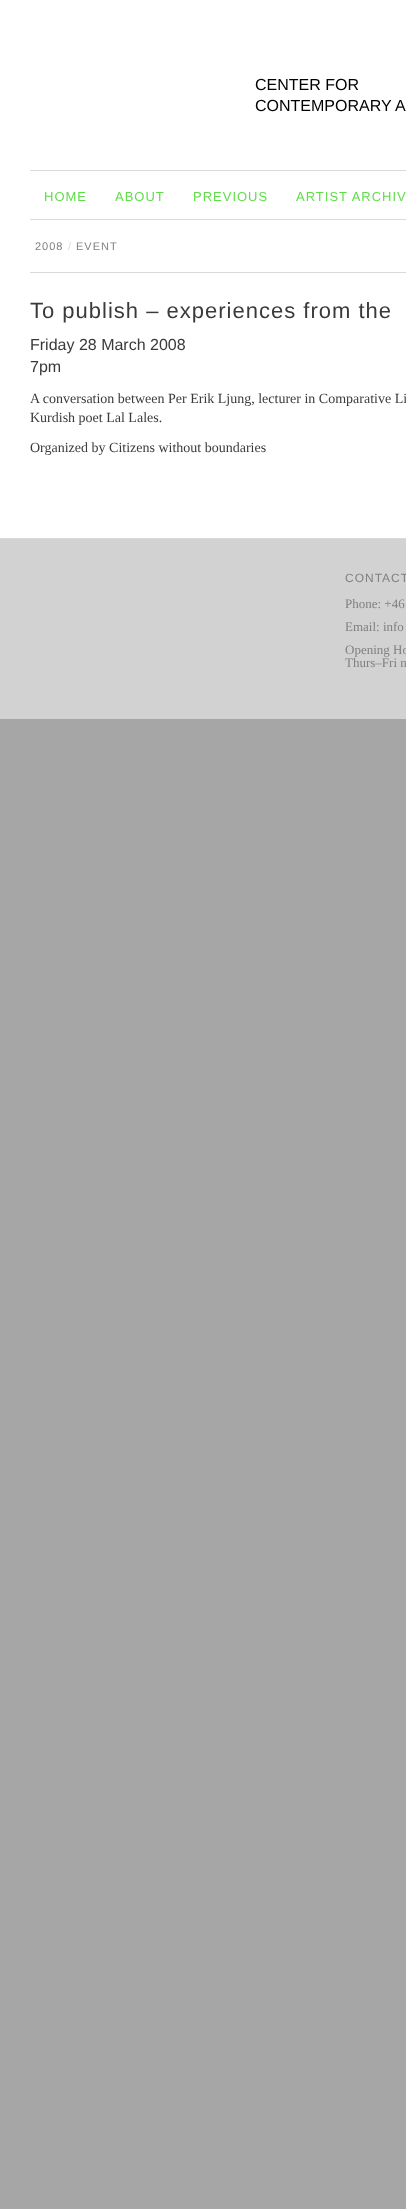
<?xml version="1.0" encoding="UTF-8"?>
<svg xmlns="http://www.w3.org/2000/svg" xmlns:xlink="http://www.w3.org/1999/xlink" width="406" height="2209">
  <rect width="100%" height="100%" fill="#a6a6a6" />
  <rect width="406" height="538" fill="#ffffff" />
  <rect x="30" y="170" width="376" height="1" fill="#d9d9d9" />
  <rect x="30" y="219" width="376" height="1" fill="#d9d9d9" />
  <rect x="30" y="272" width="376" height="1" fill="#d9d9d9" />
  <rect y="539" width="406" height="180" fill="#d2d2d2" />
  <rect y="538" width="406" height="1" fill="#d9d9d9" />
  <text x="255" y="90" style="font-family: Liberation Sans; font-size: 16px; fill: #000000">CENTER FOR</text>
  <text x="255" y="111" style="font-family: Liberation Sans; font-size: 16px; fill: #000000">CONTEMPORARY A</text>
  <text x="44" y="201" style="font-family: Liberation Sans; font-size: 13px; letter-spacing: 1px; fill: #60dd49">HOME</text>
  <text x="115" y="201" style="font-family: Liberation Sans; font-size: 13px; letter-spacing: 1px; fill: #60dd49">ABOUT</text>
  <text x="193" y="201" style="font-family: Liberation Sans; font-size: 13px; letter-spacing: 1px; fill: #60dd49">PREVIOUS</text>
  <text x="296" y="201" style="font-family: Liberation Sans; font-size: 13px; letter-spacing: 1px; fill: #60dd49">ARTIST ARCHIV</text>
  <text x="35" y="250" style="font-family: Liberation Sans; font-size: 11px; letter-spacing: 1px; fill: #808080">2008</text>
  <text x="68" y="250" style="font-family: Liberation Sans; font-size: 11px; letter-spacing: 1px; fill: #d9d9d9">/</text>
  <text x="76" y="250" style="font-family: Liberation Sans; font-size: 11px; letter-spacing: 1px; fill: #808080">EVENT</text>
  <text x="30" y="318" style="font-family: Liberation Sans; font-size: 22px; letter-spacing: 1px; fill: #3a3a39">To publish – experiences from the</text>
  <text x="30" y="350" style="font-family: Liberation Sans; font-size: 16px; fill: #3a3a39">Friday 28 March 2008</text>
  <text x="30" y="372" style="font-family: Liberation Sans; font-size: 16px; fill: #3a3a39">7pm</text>
  <text x="30" y="403" style="font-family: Liberation Serif; font-size: 14px; fill: #3a3a39">A conversation between Per Erik Ljung, lecturer in Comparative Li</text>
  <text x="30" y="422" style="font-family: Liberation Serif; font-size: 14px; fill: #3a3a39">Kurdish poet Lal Lales.</text>
  <text x="30" y="452" style="font-family: Liberation Serif; font-size: 14px; fill: #3a3a39">Organized by Citizens without boundaries</text>
  <text x="345" y="582" style="font-family: Liberation Sans; font-size: 12px; letter-spacing: 1px; fill: #808080">CONTACT</text>
  <text x="345" y="608" style="font-family: Liberation Serif; font-size: 13px; fill: #808080">Phone: +46</text>
  <text x="345" y="631" style="font-family: Liberation Serif; font-size: 13px; fill: #808080">Email: info</text>
  <text x="345" y="654" style="font-family: Liberation Serif; font-size: 13px; fill: #808080">Opening Ho</text>
  <text x="345" y="667" style="font-family: Liberation Serif; font-size: 13px; fill: #808080">Thurs–Fri n</text>
</svg>
